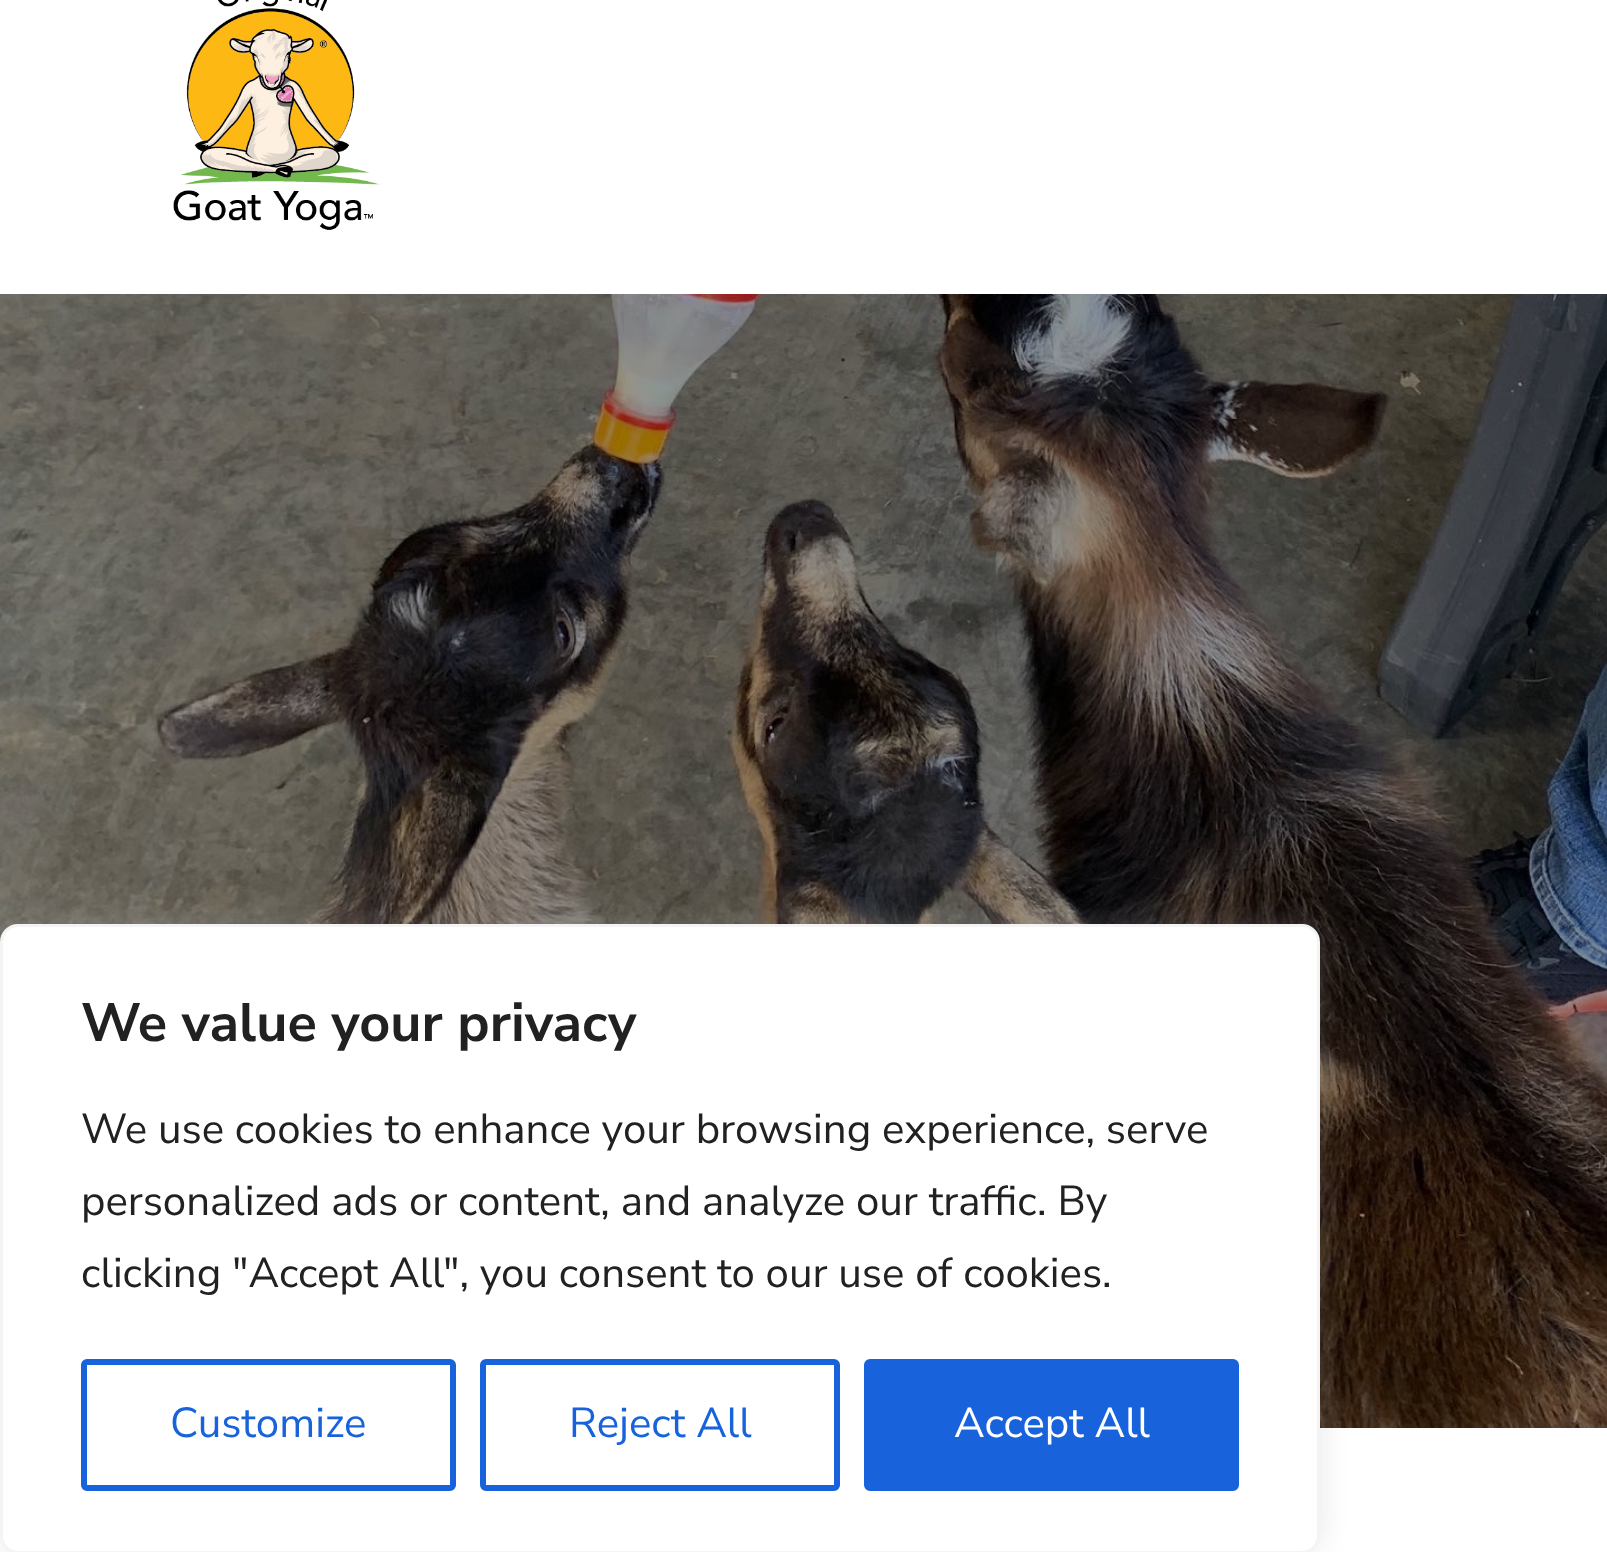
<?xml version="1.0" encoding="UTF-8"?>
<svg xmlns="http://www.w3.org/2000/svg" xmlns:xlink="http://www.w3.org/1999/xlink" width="1607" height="1552">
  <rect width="100%" height="100%" fill="#ffffff" />
  <image x="0" y="294" width="1607" height="1134" xlink:href="image1.png" />
  <image x="173" y="0" width="207" height="230" xlink:href="image2.png" />
  <rect y="921" width="1320" height="630" rx="18" fill="#acabab" fill-opacity="0.3" filter="blur(15px)" />
  <rect x="1.5" y="925.5" width="1317" height="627" rx="16.5" fill="#ffffff" stroke="#f4f4f4" stroke-width="3" />
  <rect x="84" y="1362" width="369" height="126" rx="3" fill="none" stroke="#1863dc" stroke-width="6" />
  <rect x="483" y="1362" width="354" height="126" rx="3" fill="none" stroke="#1863dc" stroke-width="6" />
  <rect x="867" y="1362" width="369" height="126" rx="3" fill="#1863dc" stroke="#1863dc" stroke-width="6" />
  <text x="81" y="1041" style="font-family: Nunito Sans; font-size: 54px; font-weight: bold; fill: #212121">We value your privacy</text>
  <text x="81" y="1143" style="font-family: Nunito Sans; font-size: 42px; fill: #212121">We use cookies to enhance your browsing experience, serve</text>
  <text x="81" y="1215" style="font-family: Nunito Sans; font-size: 42px; fill: #212121">personalized ads or content, and analyze our traffic. By</text>
  <text x="81" y="1287" style="font-family: Nunito Sans; font-size: 42px; fill: #212121">clicking "Accept All", you consent to our use of cookies.</text>
  <text x="170" y="1437" style="font-family: Nunito Sans; font-size: 42px; fill: #1863dc">Customize</text>
  <text x="569" y="1437" style="font-family: Nunito Sans; font-size: 42px; fill: #1863dc">Reject All</text>
  <text x="954" y="1437" style="font-family: Nunito Sans; font-size: 42px; fill: #ffffff">Accept All</text>
</svg>
